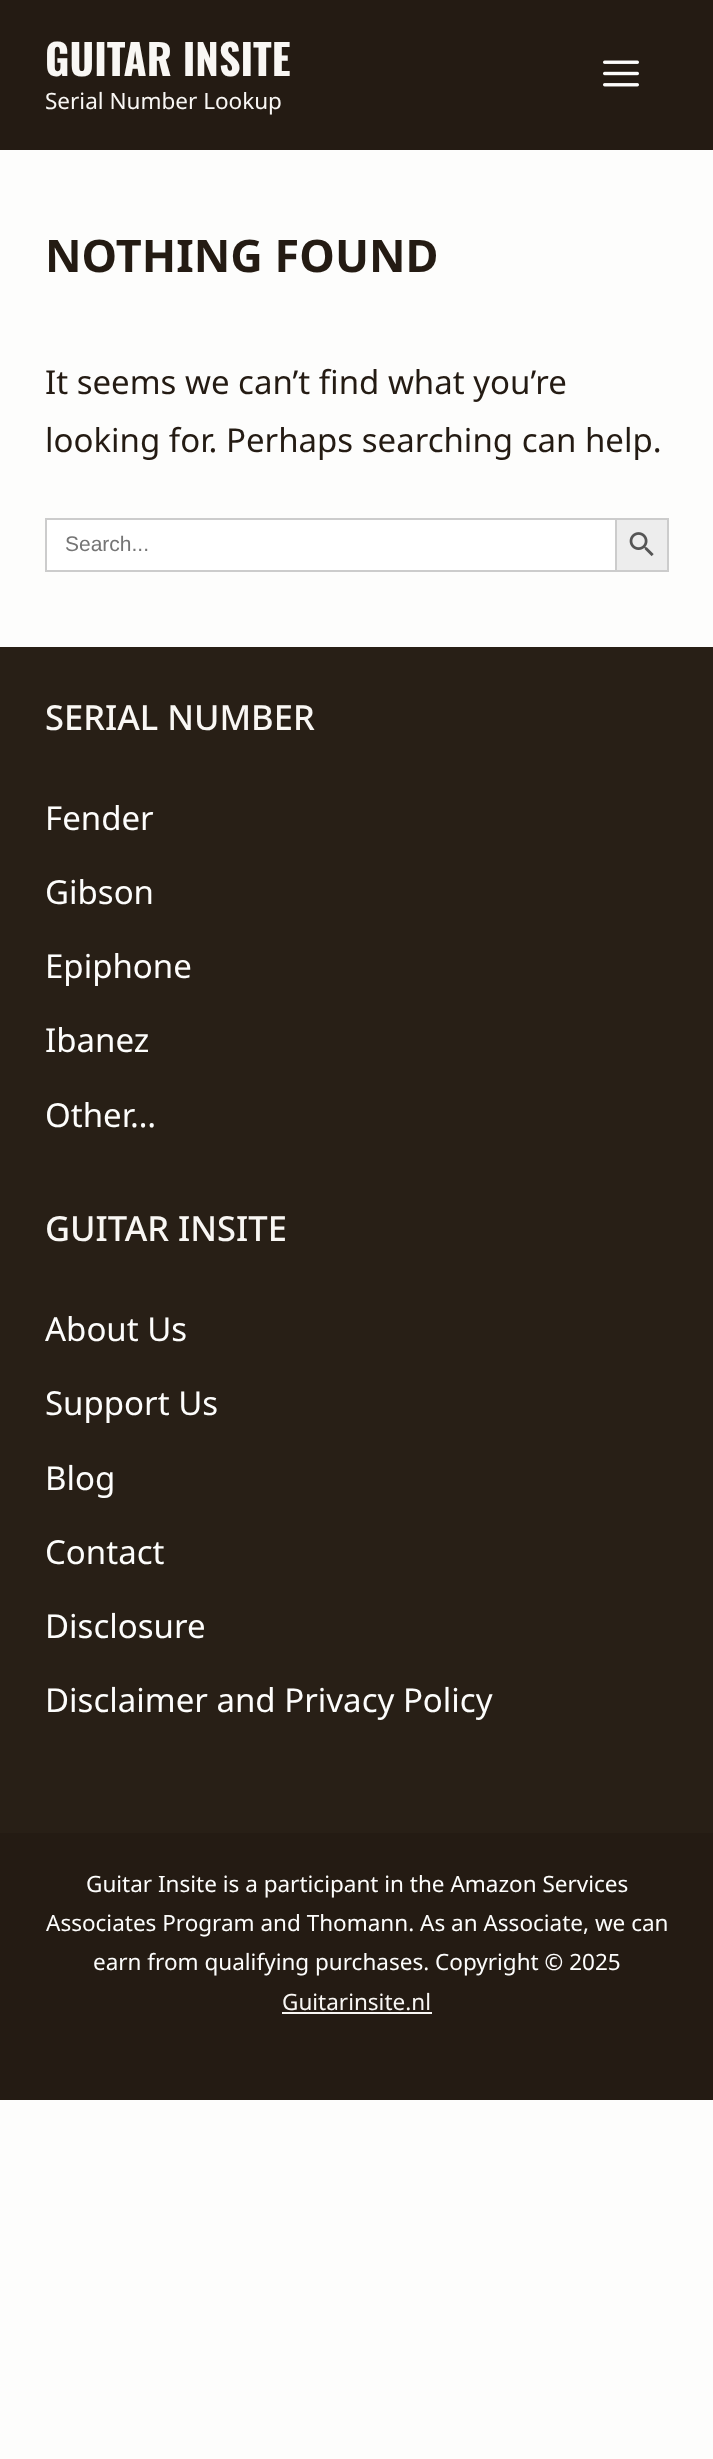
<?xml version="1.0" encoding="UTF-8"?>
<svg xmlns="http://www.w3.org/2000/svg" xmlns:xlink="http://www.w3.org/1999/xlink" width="713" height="2459">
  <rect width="100%" height="100%" fill="#fdfdfc" />
  <rect width="713" height="150" fill="#241b13" />
  <image x="603" y="60" width="36" height="27" xlink:href="image1.png" />
  <rect x="47" y="520" width="568" height="50" fill="#ffffff" />
  <rect x="45" y="518" width="570" height="2" fill="#cccccc" />
  <rect x="45" y="570" width="570" height="2" fill="#cccccc" />
  <rect x="45" y="518" width="2" height="54" fill="#cccccc" />
  <rect x="616" y="519" width="52" height="52" fill="#ededed" stroke="#cccccc" stroke-width="2" />
  <image x="629" y="532" width="25" height="25" xlink:href="image2.png" />
  <rect y="647" width="713" height="1186" fill="#281f16" />
  <rect y="1833" width="713" height="267" fill="#241b13" />
  <rect x="282" y="2012" width="150" height="2" fill="#f9f7f4" />
  <text x="45" y="76" style="font-family: Oswald; font-size: 42px; font-weight: bold; fill: #f9f7f4">GUITAR INSITE</text>
  <text x="45" y="109" style="font-family: Noto Sans; font-size: 22.5px; fill: #f9f7f4">Serial Number Lookup</text>
  <text x="45" y="272" style="font-family: Noto Sans; font-size: 45px; font-weight: bold; fill: #241b13">NOTHING FOUND</text>
  <text x="45" y="394" style="font-family: Noto Sans; font-size: 33px; fill: #241b13">It seems we can’t find what you’re</text>
  <text x="45" y="452" style="font-family: Noto Sans; font-size: 33px; fill: #241b13">looking for. Perhaps searching can help.</text>
  <text x="65" y="551" style="font-family: Liberation Sans; font-size: 21px; fill: #757575">Search...</text>
  <text x="45" y="730" style="font-family: Noto Sans; font-size: 34.5px; font-weight: 500; fill: #f9f7f4">SERIAL NUMBER</text>
  <text x="45" y="830" style="font-family: Noto Sans; font-size: 33px; fill: #fdfdfc">Fender</text>
  <text x="45" y="904" style="font-family: Noto Sans; font-size: 33px; fill: #fdfdfc">Gibson</text>
  <text x="45" y="978" style="font-family: Noto Sans; font-size: 33px; fill: #fdfdfc">Epiphone</text>
  <text x="45" y="1052" style="font-family: Noto Sans; font-size: 33px; fill: #fdfdfc">Ibanez</text>
  <text x="45" y="1127" style="font-family: Noto Sans; font-size: 33px; fill: #fdfdfc">Other…</text>
  <text x="45" y="1241" style="font-family: Noto Sans; font-size: 34.5px; font-weight: 500; fill: #f9f7f4">GUITAR INSITE</text>
  <text x="45" y="1341" style="font-family: Noto Sans; font-size: 33px; fill: #fdfdfc">About Us</text>
  <text x="45" y="1415" style="font-family: Noto Sans; font-size: 33px; fill: #fdfdfc">Support Us</text>
  <text x="45" y="1490" style="font-family: Noto Sans; font-size: 33px; fill: #fdfdfc">Blog</text>
  <text x="45" y="1564" style="font-family: Noto Sans; font-size: 33px; fill: #fdfdfc">Contact</text>
  <text x="45" y="1638" style="font-family: Noto Sans; font-size: 33px; fill: #fdfdfc">Disclosure</text>
  <text x="45" y="1712" style="font-family: Noto Sans; font-size: 33px; fill: #fdfdfc">Disclaimer and Privacy Policy</text>
  <text x="86" y="1892" style="font-family: Noto Sans; font-size: 22.5px; fill: #fdfdfc">Guitar Insite is a participant in the Amazon Services</text>
  <text x="46" y="1931" style="font-family: Noto Sans; font-size: 22.5px; fill: #fdfdfc">Associates Program and Thomann. As an Associate, we can</text>
  <text x="93" y="1970" style="font-family: Noto Sans; font-size: 22.5px; fill: #fdfdfc">earn from qualifying purchases. Copyright © 2025</text>
  <text x="282" y="2010" style="font-family: Noto Sans; font-size: 22.5px; fill: #f9f7f4">Guitarinsite.nl</text>
</svg>
